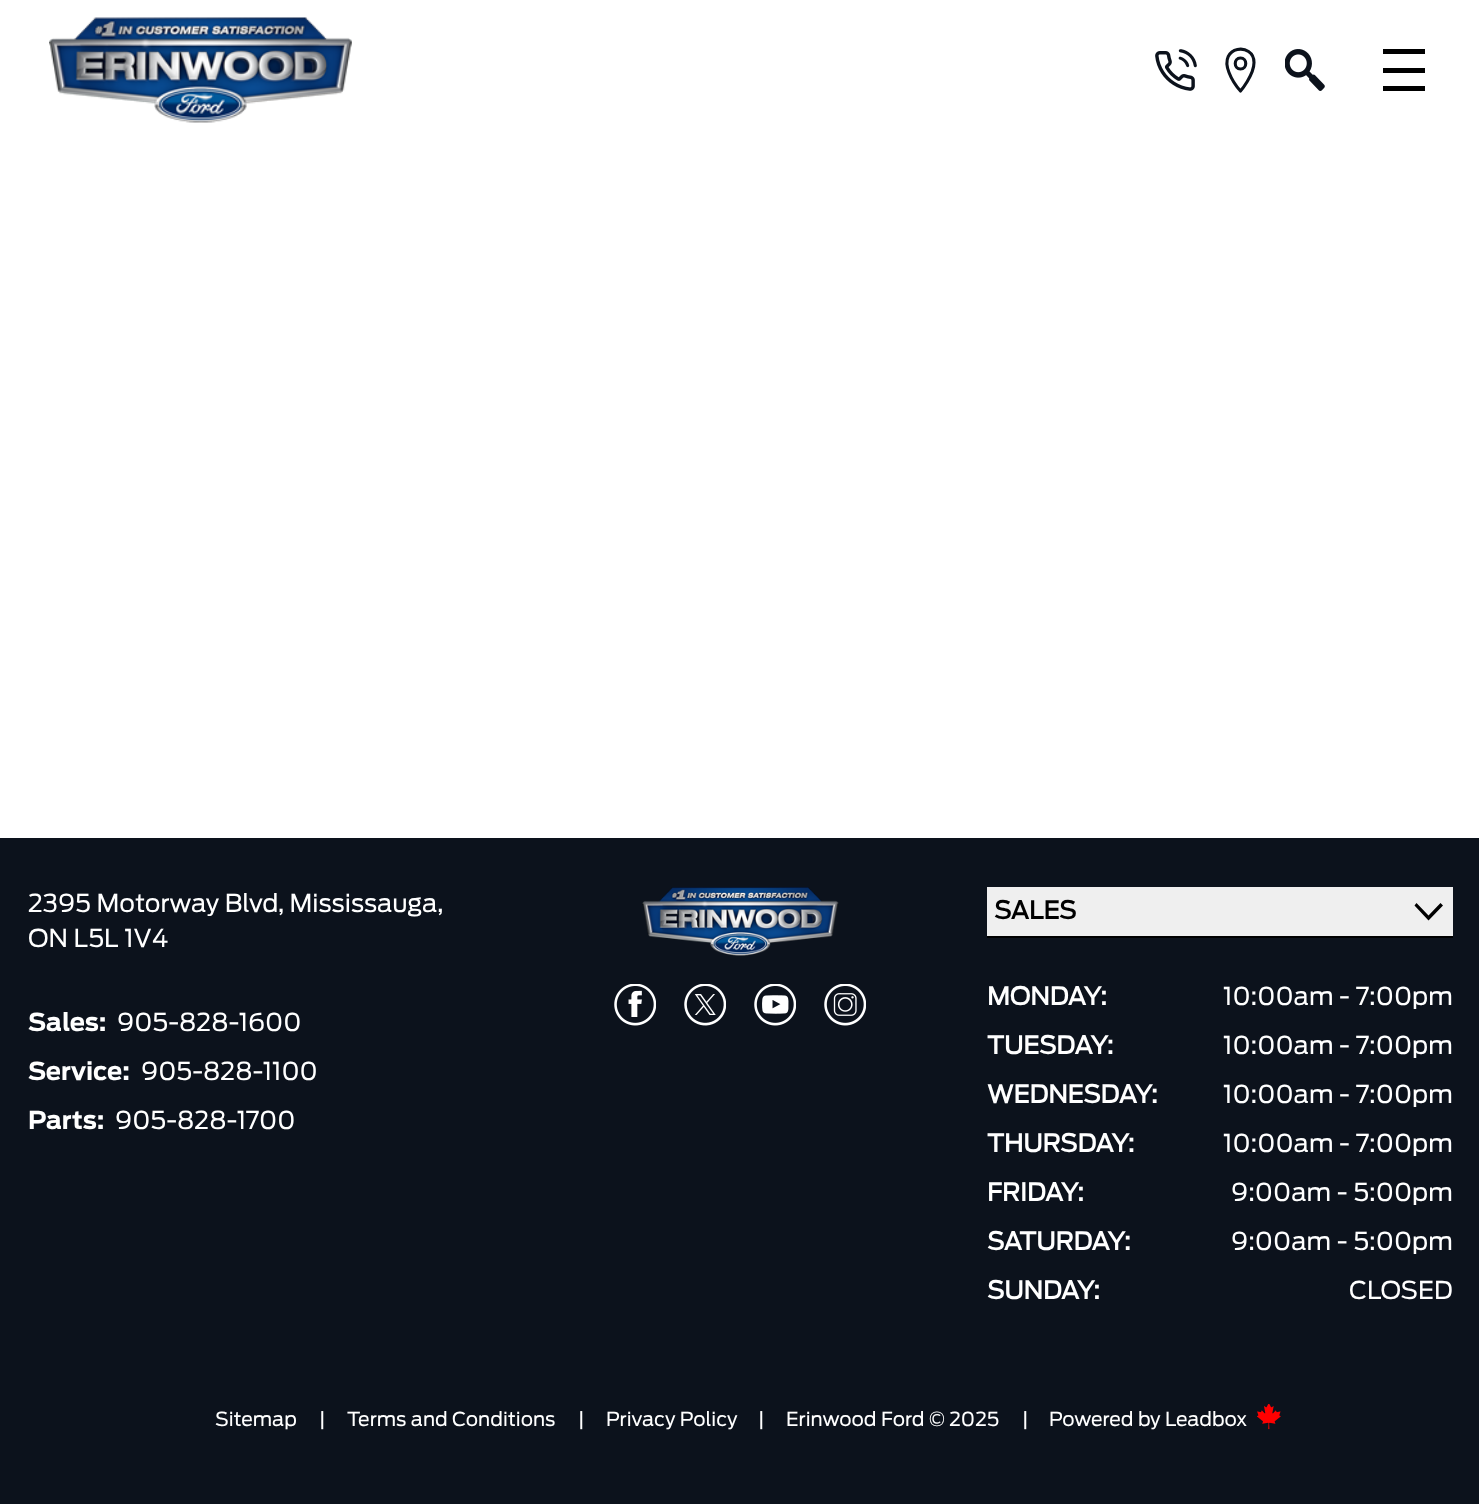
<?xml version="1.0" encoding="UTF-8"?>
<svg xmlns="http://www.w3.org/2000/svg" xmlns:xlink="http://www.w3.org/1999/xlink" width="1479" height="1504">
  <rect width="100%" height="100%" fill="#ffffff" />
  <image x="49" y="17" width="303" height="106" xlink:href="image1.png" />
  <image x="1155" y="49" width="42" height="42" xlink:href="image2.png" />
  <path d="M 1254 62.5 c 0 12.5 -13.5 28.5 -13.5 28.5 c -5 -5.5 -9 -12 -11.5 -18.5 c -11 -27.5 25 -30.5 25 -10 z m -13.5 6.5 c 7 0 7 -11 0 -11 c -7 0 -7 11 0 11 z" fill="none" stroke="#0c121c" stroke-width="3.1" stroke-linejoin="round" />
  <image x="1285" y="49" width="40" height="42" xlink:href="image3.png" />
  <rect x="1383" y="49" width="42" height="5" fill="#000000" />
  <rect x="1383" y="68" width="42" height="5" fill="#000000" />
  <rect x="1383" y="86" width="42" height="5" fill="#000000" />
  <rect y="838" width="1479" height="666" fill="#0c121c" />
  <image x="642" y="887" width="197" height="69" xlink:href="image4.png" />
  <image x="614" y="984" width="42" height="42" xlink:href="image5.png" />
  <image x="684" y="984" width="42" height="42" xlink:href="image6.png" />
  <image x="754" y="984" width="42" height="42" xlink:href="image7.png" />
  <image x="824" y="984" width="42" height="42" xlink:href="image8.png" />
  <rect x="987" y="887" width="466" height="49" fill="#efefef" />
  <path d="M 1428.5 920.5 l -14 -15 l 2 -2.5 l 12 12.5 l 12 -12.5 l 2.5 2.5 z" fill="#000000" fill-rule="evenodd" />
  <rect x="987" y="936" width="466" height="2" fill="#000000" />
  <image x="1257" y="1404" width="24" height="26" xlink:href="image9.png" />
  <text x="28" y="912" style="font-family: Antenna; font-size: 24.5px; fill: #ffffff">2395 Motorway Blvd, Mississauga,</text>
  <text x="28" y="947" style="font-family: Antenna; font-size: 24.5px; fill: #ffffff">ON L5L 1V4</text>
  <text x="28" y="1031" style="font-family: Antenna; font-size: 24.5px; font-weight: bold; fill: #ffffff">Sales:</text>
  <text x="117" y="1031" style="font-family: Antenna; font-size: 24.5px; fill: #ffffff">905-828-1600</text>
  <text x="28" y="1080" style="font-family: Antenna; font-size: 24.5px; font-weight: bold; fill: #ffffff">Service:</text>
  <text x="141" y="1080" style="font-family: Antenna; font-size: 24.5px; fill: #ffffff">905-828-1100</text>
  <text x="28" y="1129" style="font-family: Antenna; font-size: 24.5px; font-weight: bold; fill: #ffffff">Parts:</text>
  <text x="115" y="1129" style="font-family: Antenna; font-size: 24.5px; fill: #ffffff">905-828-1700</text>
  <text x="994" y="919" style="font-family: 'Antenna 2'; font-size: 24.5px; font-weight: bold; fill: #000000">SALES</text>
  <text x="987" y="1005" style="font-family: 'Antenna 2'; font-size: 24.5px; font-weight: bold; fill: #ffffff">MONDAY:</text>
  <text x="1223" y="1005" style="font-family: Antenna; font-size: 24.5px; fill: #ffffff">10:00am - 7:00pm</text>
  <text x="987" y="1054" style="font-family: 'Antenna 2'; font-size: 24.5px; font-weight: bold; fill: #ffffff">TUESDAY:</text>
  <text x="1223" y="1054" style="font-family: Antenna; font-size: 24.5px; fill: #ffffff">10:00am - 7:00pm</text>
  <text x="987" y="1103" style="font-family: 'Antenna 2'; font-size: 24.5px; font-weight: bold; fill: #ffffff">WEDNESDAY:</text>
  <text x="1223" y="1103" style="font-family: Antenna; font-size: 24.5px; fill: #ffffff">10:00am - 7:00pm</text>
  <text x="987" y="1152" style="font-family: 'Antenna 2'; font-size: 24.5px; font-weight: bold; fill: #ffffff">THURSDAY:</text>
  <text x="1223" y="1152" style="font-family: Antenna; font-size: 24.5px; fill: #ffffff">10:00am - 7:00pm</text>
  <text x="987" y="1201" style="font-family: 'Antenna 2'; font-size: 24.5px; font-weight: bold; fill: #ffffff">FRIDAY:</text>
  <text x="1231" y="1201" style="font-family: Antenna; font-size: 24.5px; fill: #ffffff">9:00am - 5:00pm</text>
  <text x="987" y="1250" style="font-family: 'Antenna 2'; font-size: 24.5px; font-weight: bold; fill: #ffffff">SATURDAY:</text>
  <text x="1231" y="1250" style="font-family: Antenna; font-size: 24.5px; fill: #ffffff">9:00am - 5:00pm</text>
  <text x="987" y="1299" style="font-family: 'Antenna 2'; font-size: 24.5px; font-weight: bold; fill: #ffffff">SUNDAY:</text>
  <text x="1349" y="1299" style="font-family: Antenna; font-size: 24.5px; fill: #ffffff">CLOSED</text>
  <text x="215" y="1426" style="font-family: Antenna; font-size: 19.25px; fill: #ffffff">Sitemap</text>
  <text x="319" y="1426" style="font-family: Antenna; font-size: 19.25px; fill: #ffffff">|</text>
  <text x="347" y="1426" style="font-family: Antenna; font-size: 19.25px; fill: #ffffff">Terms and Conditions</text>
  <text x="578" y="1426" style="font-family: Antenna; font-size: 19.25px; fill: #ffffff">|</text>
  <text x="606" y="1426" style="font-family: Antenna; font-size: 19.25px; fill: #ffffff">Privacy Policy</text>
  <text x="758" y="1426" style="font-family: Antenna; font-size: 19.25px; fill: #ffffff">|</text>
  <text x="786" y="1426" style="font-family: Antenna; font-size: 19.25px; fill: #ffffff">Erinwood Ford © 2025</text>
  <text x="1022" y="1426" style="font-family: Antenna; font-size: 19.25px; fill: #ffffff">|</text>
  <text x="1049" y="1426" style="font-family: Antenna; font-size: 19.25px; fill: #ffffff">Powered by Leadbox</text>
</svg>
